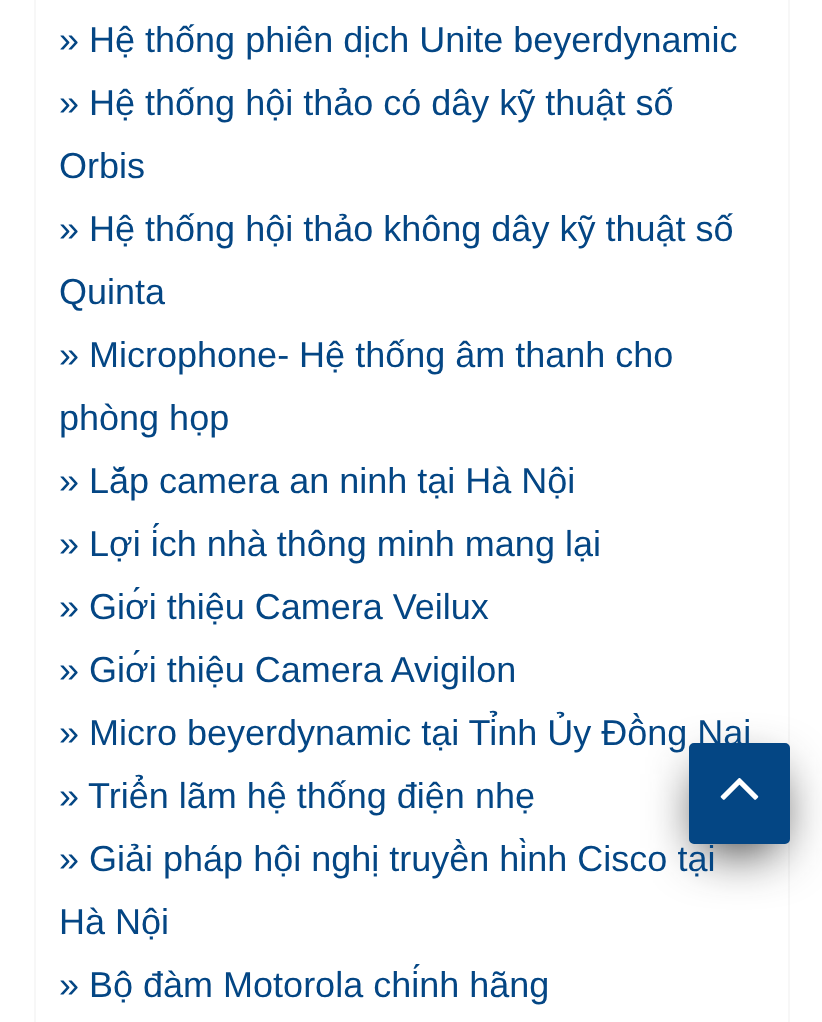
<?xml version="1.0" encoding="UTF-8"?>
<svg xmlns="http://www.w3.org/2000/svg" xmlns:xlink="http://www.w3.org/1999/xlink" width="822" height="1022">
  <rect width="100%" height="100%" fill="#ffffff" />
  <rect x="35" y="-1" width="754" height="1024" fill="none" stroke="#f7f7f7" stroke-width="2" />
  <rect x="702" y="774" width="74" height="74" fill="#1b1b1b" filter="blur(26px)" />
  <rect x="691.5" y="745.5" width="96" height="96" rx="2.5" fill="#044684" stroke="#044684" stroke-width="5" />
  <image x="720" y="778" width="39" height="22" xlink:href="image1.png" />
  <text x="59" y="52" style="font-family: Liberation Sans; font-size: 36px; fill: #044684">» Hệ thống phiên dịch Unite beyerdynamic</text>
  <text x="59" y="115" style="font-family: Liberation Sans; font-size: 36px; fill: #044684">» Hệ thống hội thảo có dây kỹ thuật số</text>
  <text x="59" y="178" style="font-family: Liberation Sans; font-size: 36px; fill: #044684">Orbis</text>
  <text x="59" y="241" style="font-family: Liberation Sans; font-size: 36px; fill: #044684">» Hệ thống hội thảo không dây kỹ thuật số</text>
  <text x="59" y="304" style="font-family: Liberation Sans; font-size: 36px; fill: #044684">Quinta</text>
  <text x="59" y="367" style="font-family: Liberation Sans; font-size: 36px; fill: #044684">» Microphone- Hệ thống âm thanh cho</text>
  <text x="59" y="430" style="font-family: Liberation Sans; font-size: 36px; fill: #044684">phòng họp</text>
  <text x="59" y="493" style="font-family: Liberation Sans; font-size: 36px; fill: #044684">» Lắp camera an ninh tại Hà Nội</text>
  <text x="59" y="556" style="font-family: Liberation Sans; font-size: 36px; fill: #044684">» Lợi ích nhà thông minh mang lại</text>
  <text x="59" y="619" style="font-family: Liberation Sans; font-size: 36px; fill: #044684">» Giới thiệu Camera Veilux</text>
  <text x="59" y="682" style="font-family: Liberation Sans; font-size: 36px; fill: #044684">» Giới thiệu Camera Avigilon</text>
  <text x="59" y="745" style="font-family: Liberation Sans; font-size: 36px; fill: #044684">» Micro beyerdynamic tại Tỉnh Ủy Đồng Nai</text>
  <text x="59" y="808" style="font-family: Liberation Sans; font-size: 36px; fill: #044684">»</text>
  <text x="88" y="808" style="font-family: Liberation Sans; font-size: 36px; fill: #044684">Triển lãm hệ thống điện nhẹ</text>
  <text x="59" y="871" style="font-family: Liberation Sans; font-size: 36px; fill: #044684">» Giải pháp hội nghị truyền hình Cisco tại</text>
  <text x="59" y="934" style="font-family: Liberation Sans; font-size: 36px; fill: #044684">Hà Nội</text>
  <text x="59" y="997" style="font-family: Liberation Sans; font-size: 36px; fill: #044684">» Bộ đàm Motorola chính hãng</text>
</svg>
